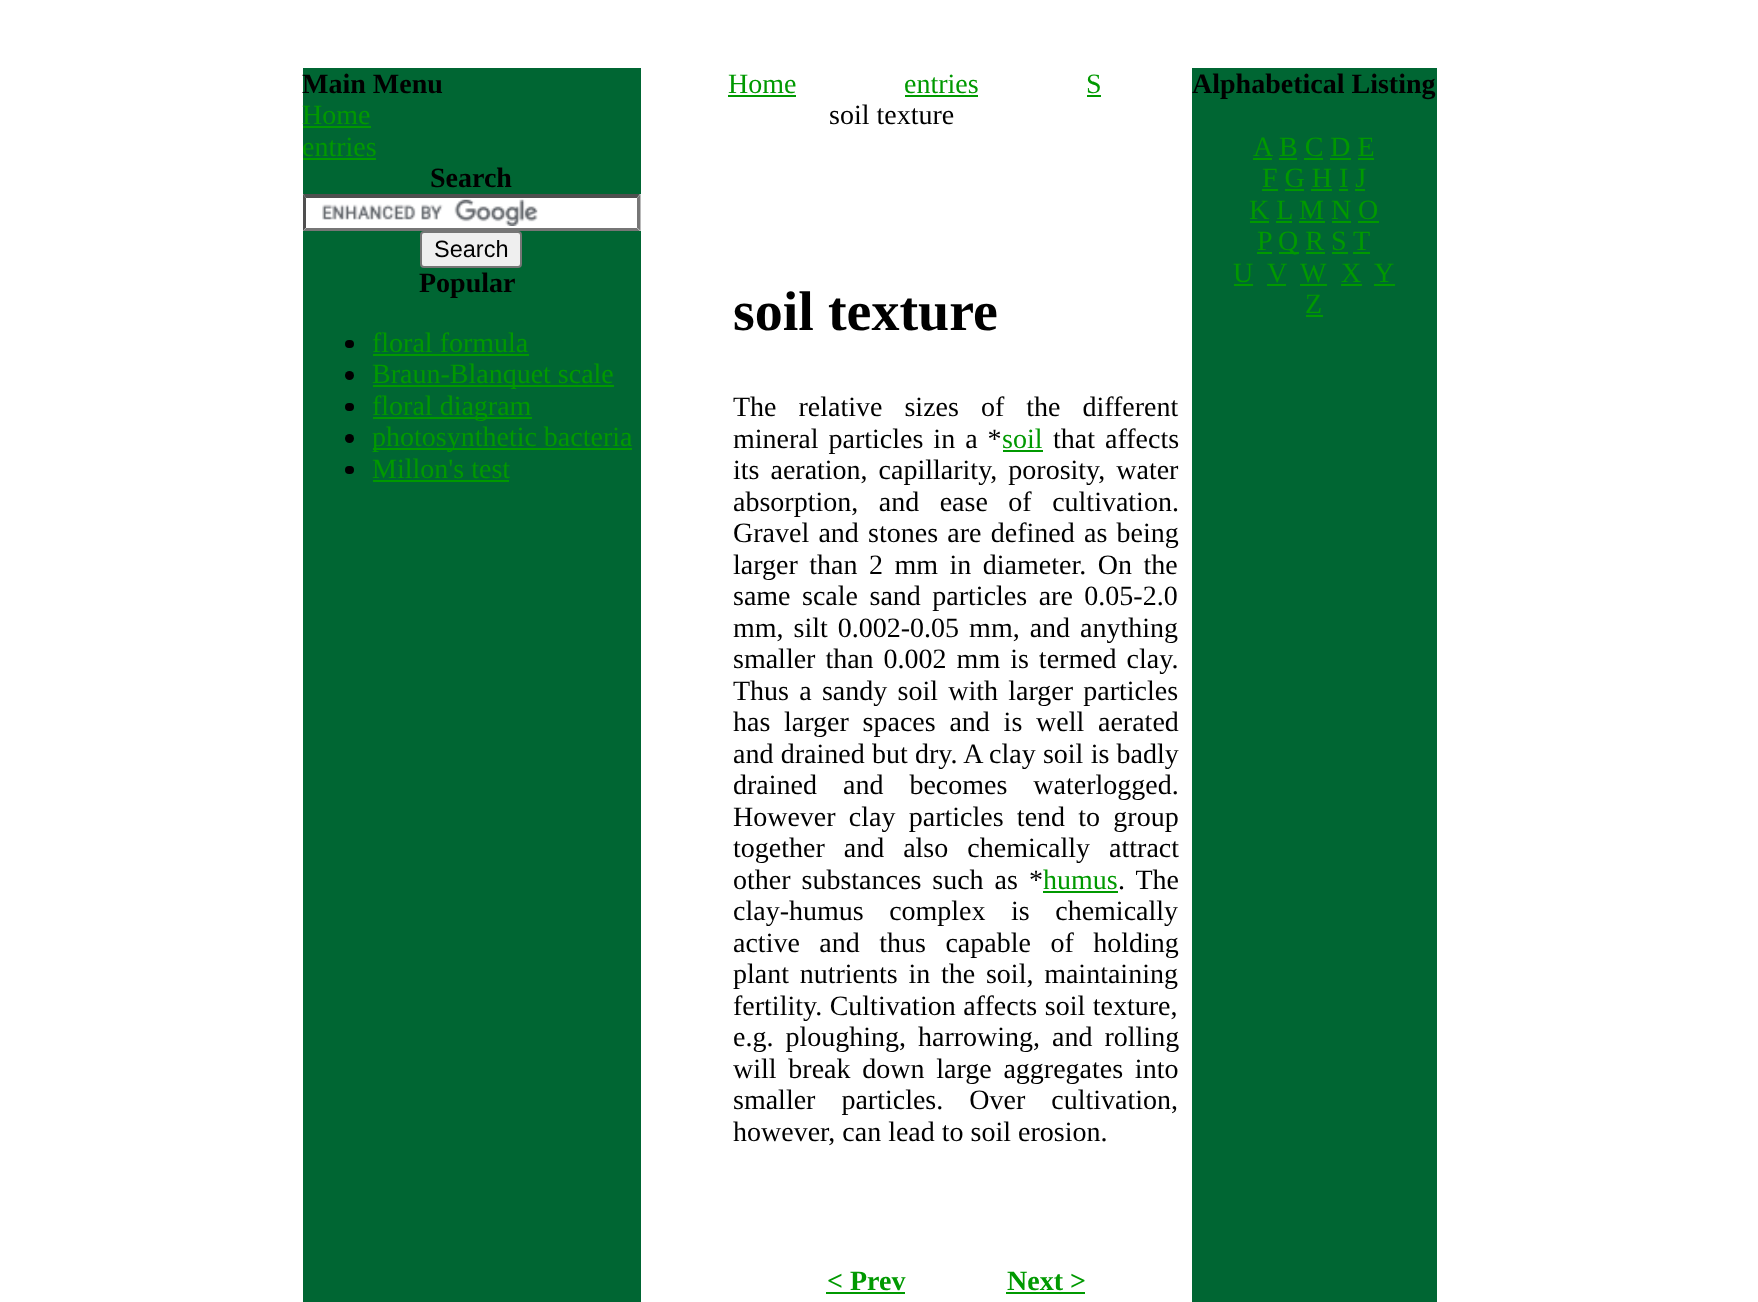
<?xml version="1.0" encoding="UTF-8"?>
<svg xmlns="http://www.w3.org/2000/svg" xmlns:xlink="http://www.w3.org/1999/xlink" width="1758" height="1302">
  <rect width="100%" height="100%" fill="#ffffff" />
  <rect x="303" y="68" width="338" height="1234" fill="#006633" />
  <rect x="303" y="126" width="68" height="2" fill="#009900" />
  <rect x="303" y="158" width="73" height="2" fill="#009900" />
  <rect x="303" y="194" width="338" height="37" fill="#ffffff" />
  <image x="322" y="199" width="216" height="27" xlink:href="image1.png" />
  <path d="M 303 194 h 337 l -3 4 h -331 z" fill="#4f4f4f" />
  <path d="M 640.5 194 v 37 l -3.5 -3.5 v -29.5 z" fill="#767676" />
  <path d="M 640 231 h -337 l 3 -3 h 331 z" fill="#767676" />
  <path d="M 303 231 v -37 l 3 4 v 29.5 z" fill="#4f4f4f" />
  <rect x="421" y="232" width="100" height="35" rx="3" fill="#efefef" stroke="#767676" stroke-width="2" />
  <rect x="345" y="340" width="9" height="8" rx="4" fill="#000000" />
  <rect x="373" y="354" width="156" height="2" fill="#009900" />
  <circle cx="349.5" cy="375.5" r="4.5" fill="#000000" />
  <rect x="373" y="385" width="241" height="2" fill="#009900" />
  <rect x="345" y="403" width="9" height="8" rx="4" fill="#000000" />
  <rect x="373" y="417" width="159" height="2" fill="#009900" />
  <circle cx="349.5" cy="438.5" r="4.5" fill="#000000" />
  <rect x="373" y="448" width="259" height="2" fill="#009900" />
  <rect x="345" y="466" width="9" height="8" rx="4" fill="#000000" />
  <rect x="373" y="480" width="136" height="2" fill="#009900" />
  <rect x="728" y="95" width="68" height="2" fill="#009900" />
  <rect x="905" y="95" width="73" height="2" fill="#009900" />
  <rect x="1087" y="95" width="14" height="2" fill="#009900" />
  <rect x="1003" y="450" width="40" height="2" fill="#009900" />
  <rect x="1043" y="891" width="75" height="2" fill="#009900" />
  <rect x="826" y="1292" width="79" height="2" fill="#009900" />
  <rect x="1006" y="1292" width="79" height="2" fill="#009900" />
  <rect x="1192" y="68" width="245" height="1234" fill="#006633" />
  <rect x="1253" y="158" width="19" height="2" fill="#009900" />
  <rect x="1279" y="158" width="18" height="2" fill="#009900" />
  <rect x="1304" y="158" width="19" height="2" fill="#009900" />
  <rect x="1330" y="158" width="21" height="2" fill="#009900" />
  <rect x="1358" y="158" width="16" height="2" fill="#009900" />
  <rect x="1262" y="189" width="16" height="2" fill="#009900" />
  <rect x="1285" y="189" width="19" height="2" fill="#009900" />
  <rect x="1311" y="189" width="21" height="2" fill="#009900" />
  <rect x="1339" y="189" width="9" height="2" fill="#009900" />
  <rect x="1355" y="189" width="10" height="2" fill="#009900" />
  <rect x="1250" y="221" width="19" height="2" fill="#009900" />
  <rect x="1299" y="221" width="26" height="2" fill="#009900" />
  <rect x="1276" y="221" width="16" height="2" fill="#009900" />
  <rect x="1332" y="221" width="19" height="2" fill="#009900" />
  <rect x="1358" y="221" width="21" height="2" fill="#009900" />
  <rect x="1257" y="252" width="15" height="2" fill="#009900" />
  <rect x="1279" y="252" width="20" height="2" fill="#009900" />
  <rect x="1353" y="252" width="17" height="2" fill="#009900" />
  <rect x="1306" y="252" width="19" height="2" fill="#009900" />
  <rect x="1332" y="252" width="16" height="2" fill="#009900" />
  <rect x="1234" y="284" width="19" height="2" fill="#009900" />
  <rect x="1267" y="284" width="19" height="2" fill="#009900" />
  <rect x="1300" y="284" width="27" height="2" fill="#009900" />
  <rect x="1341" y="284" width="21" height="2" fill="#009900" />
  <rect x="1374" y="284" width="21" height="2" fill="#009900" />
  <rect x="1306" y="315" width="17" height="2" fill="#009900" />
  <text x="302" y="93" style="font-family: Liberation Serif; font-size: 28px; font-weight: bold; fill: #000000">Main Menu</text>
  <text x="302" y="124" style="font-family: Liberation Serif; font-size: 28px; fill: #009900">Home</text>
  <text x="302" y="156" style="font-family: Liberation Serif; font-size: 28px; fill: #009900">entries</text>
  <text x="430" y="187" style="font-family: Liberation Serif; font-size: 28px; font-weight: bold; fill: #000000">Search</text>
  <text x="434" y="257" style="font-family: Liberation Sans; font-size: 23.5px; fill: #000000">Search</text>
  <text x="419" y="292" style="font-family: Liberation Serif; font-size: 28px; font-weight: bold; fill: #000000">Popular</text>
  <text x="372" y="352" style="font-family: Liberation Serif; font-size: 28px; fill: #009900">floral formula</text>
  <text x="372" y="383" style="font-family: Liberation Serif; font-size: 28px; fill: #009900">Braun-Blanquet scale</text>
  <text x="372" y="415" style="font-family: Liberation Serif; font-size: 28px; fill: #009900">floral diagram</text>
  <text x="372" y="446" style="font-family: Liberation Serif; font-size: 28px; fill: #009900">photosynthetic bacteria</text>
  <text x="372" y="478" style="font-family: Liberation Serif; font-size: 28px; fill: #009900">Millon's test</text>
  <text x="728" y="93" style="font-family: Liberation Serif; font-size: 28px; fill: #009900">Home</text>
  <text x="904" y="93" style="font-family: Liberation Serif; font-size: 28px; fill: #009900">entries</text>
  <text x="1086" y="93" style="font-family: Liberation Serif; font-size: 28px; fill: #009900">S</text>
  <text x="829" y="124" style="font-family: Liberation Serif; font-size: 28px; fill: #000000">soil texture</text>
  <text x="733" y="330" style="font-family: Liberation Serif; font-size: 56px; font-weight: bold; fill: #000000">soil texture</text>
  <text x="733" y="416" word-spacing="15" style="font-family: Liberation Serif; font-size: 28px; fill: #000000">The relative sizes of the different</text>
  <text x="733" y="448" word-spacing="3" style="font-family: Liberation Serif; font-size: 28px; fill: #000000">mineral particles in a *</text>
  <text x="1002" y="448" style="font-family: Liberation Serif; font-size: 28px; fill: #009900">soil</text>
  <text x="1053" y="448" word-spacing="3" style="font-family: Liberation Serif; font-size: 28px; fill: #000000">that affects</text>
  <text x="733" y="479" word-spacing="4" style="font-family: Liberation Serif; font-size: 28px; fill: #000000">its aeration, capillarity, porosity, water</text>
  <text x="733" y="511" word-spacing="13.5" style="font-family: Liberation Serif; font-size: 28px; fill: #000000">absorption, and ease of cultivation.</text>
  <text x="733" y="542" word-spacing="2.25" style="font-family: Liberation Serif; font-size: 28px; fill: #000000">Gravel and stones are defined as being</text>
  <text x="733" y="574" word-spacing="4.5" style="font-family: Liberation Serif; font-size: 28px; fill: #000000">larger than 2 mm in diameter. On the</text>
  <text x="733" y="605" word-spacing="4.5" style="font-family: Liberation Serif; font-size: 28px; fill: #000000">same scale sand particles are 0.05-2.0</text>
  <text x="733" y="637" word-spacing="3" style="font-family: Liberation Serif; font-size: 28px; fill: #000000">mm, silt 0.002-0.05 mm, and anything</text>
  <text x="733" y="668" word-spacing="3" style="font-family: Liberation Serif; font-size: 28px; fill: #000000">smaller than 0.002 mm is termed clay.</text>
  <text x="733" y="700" word-spacing="3.25" style="font-family: Liberation Serif; font-size: 28px; fill: #000000">Thus a sandy soil with larger particles</text>
  <text x="733" y="731" word-spacing="6.75" style="font-family: Liberation Serif; font-size: 28px; fill: #000000">has larger spaces and is well aerated</text>
  <text x="733" y="763" word-spacing="0.25" style="font-family: Liberation Serif; font-size: 28px; fill: #000000">and drained but dry. A clay soil is badly</text>
  <text x="733" y="794" word-spacing="19" style="font-family: Liberation Serif; font-size: 28px; fill: #000000">drained and becomes waterlogged.</text>
  <text x="733" y="826" word-spacing="6.25" style="font-family: Liberation Serif; font-size: 28px; fill: #000000">However clay particles tend to group</text>
  <text x="733" y="857" word-spacing="12" style="font-family: Liberation Serif; font-size: 28px; fill: #000000">together and also chemically attract</text>
  <text x="733" y="889" word-spacing="4" style="font-family: Liberation Serif; font-size: 28px; fill: #000000">other substances such as *</text>
  <text x="1043" y="889" style="font-family: Liberation Serif; font-size: 28px; fill: #009900">humus</text>
  <text x="1118" y="889" word-spacing="4" style="font-family: Liberation Serif; font-size: 28px; fill: #000000">. The</text>
  <text x="733" y="920" word-spacing="18.5" style="font-family: Liberation Serif; font-size: 28px; fill: #000000">clay-humus complex is chemically</text>
  <text x="733" y="952" word-spacing="12.5" style="font-family: Liberation Serif; font-size: 28px; fill: #000000">active and thus capable of holding</text>
  <text x="733" y="983" word-spacing="3.75" style="font-family: Liberation Serif; font-size: 28px; fill: #000000">plant nutrients in the soil, maintaining</text>
  <text x="733" y="1015" word-spacing="0.5" style="font-family: Liberation Serif; font-size: 28px; fill: #000000">fertility. Cultivation affects soil texture,</text>
  <text x="733" y="1046" word-spacing="5" style="font-family: Liberation Serif; font-size: 28px; fill: #000000">e.g. ploughing, harrowing, and rolling</text>
  <text x="733" y="1078" word-spacing="4.75" style="font-family: Liberation Serif; font-size: 28px; fill: #000000">will break down large aggregates into</text>
  <text x="733" y="1109" word-spacing="19" style="font-family: Liberation Serif; font-size: 28px; fill: #000000">smaller particles. Over cultivation,</text>
  <text x="733" y="1141" style="font-family: Liberation Serif; font-size: 28px; fill: #000000">however, can lead to soil erosion.</text>
  <text x="827" y="1290" style="font-family: Liberation Serif; font-size: 28px; font-weight: bold; fill: #009900">&lt; Prev</text>
  <text x="1007" y="1290" style="font-family: Liberation Serif; font-size: 28px; font-weight: bold; fill: #009900">Next &gt;</text>
  <text x="1192" y="93" style="font-family: Liberation Serif; font-size: 28px; font-weight: bold; fill: #000000">Alphabetical Listing</text>
  <text x="1253" y="156" style="font-family: Liberation Serif; font-size: 28px; fill: #009900">A</text>
  <text x="1279" y="156" style="font-family: Liberation Serif; font-size: 28px; fill: #009900">B C D E</text>
  <text x="1262" y="187" style="font-family: Liberation Serif; font-size: 28px; fill: #009900">F G H I J</text>
  <text x="1249" y="219" style="font-family: Liberation Serif; font-size: 28px; fill: #009900">K L</text>
  <text x="1299" y="219" style="font-family: Liberation Serif; font-size: 28px; fill: #009900">M N O</text>
  <text x="1257" y="250" style="font-family: Liberation Serif; font-size: 28px; fill: #009900">P</text>
  <text x="1278" y="250" style="font-family: Liberation Serif; font-size: 28px; fill: #009900">Q R S</text>
  <text x="1353" y="250" style="font-family: Liberation Serif; font-size: 28px; fill: #009900">T</text>
  <text x="1233" y="282" style="font-family: Liberation Serif; font-size: 28px; fill: #009900">U</text>
  <text x="1267" y="282" style="font-family: Liberation Serif; font-size: 28px; fill: #009900">V</text>
  <text x="1300" y="282" style="font-family: Liberation Serif; font-size: 28px; fill: #009900">W</text>
  <text x="1341" y="282" style="font-family: Liberation Serif; font-size: 28px; fill: #009900">X</text>
  <text x="1374" y="282" style="font-family: Liberation Serif; font-size: 28px; fill: #009900">Y</text>
  <text x="1305" y="313" style="font-family: Liberation Serif; font-size: 28px; fill: #009900">Z</text>
</svg>
